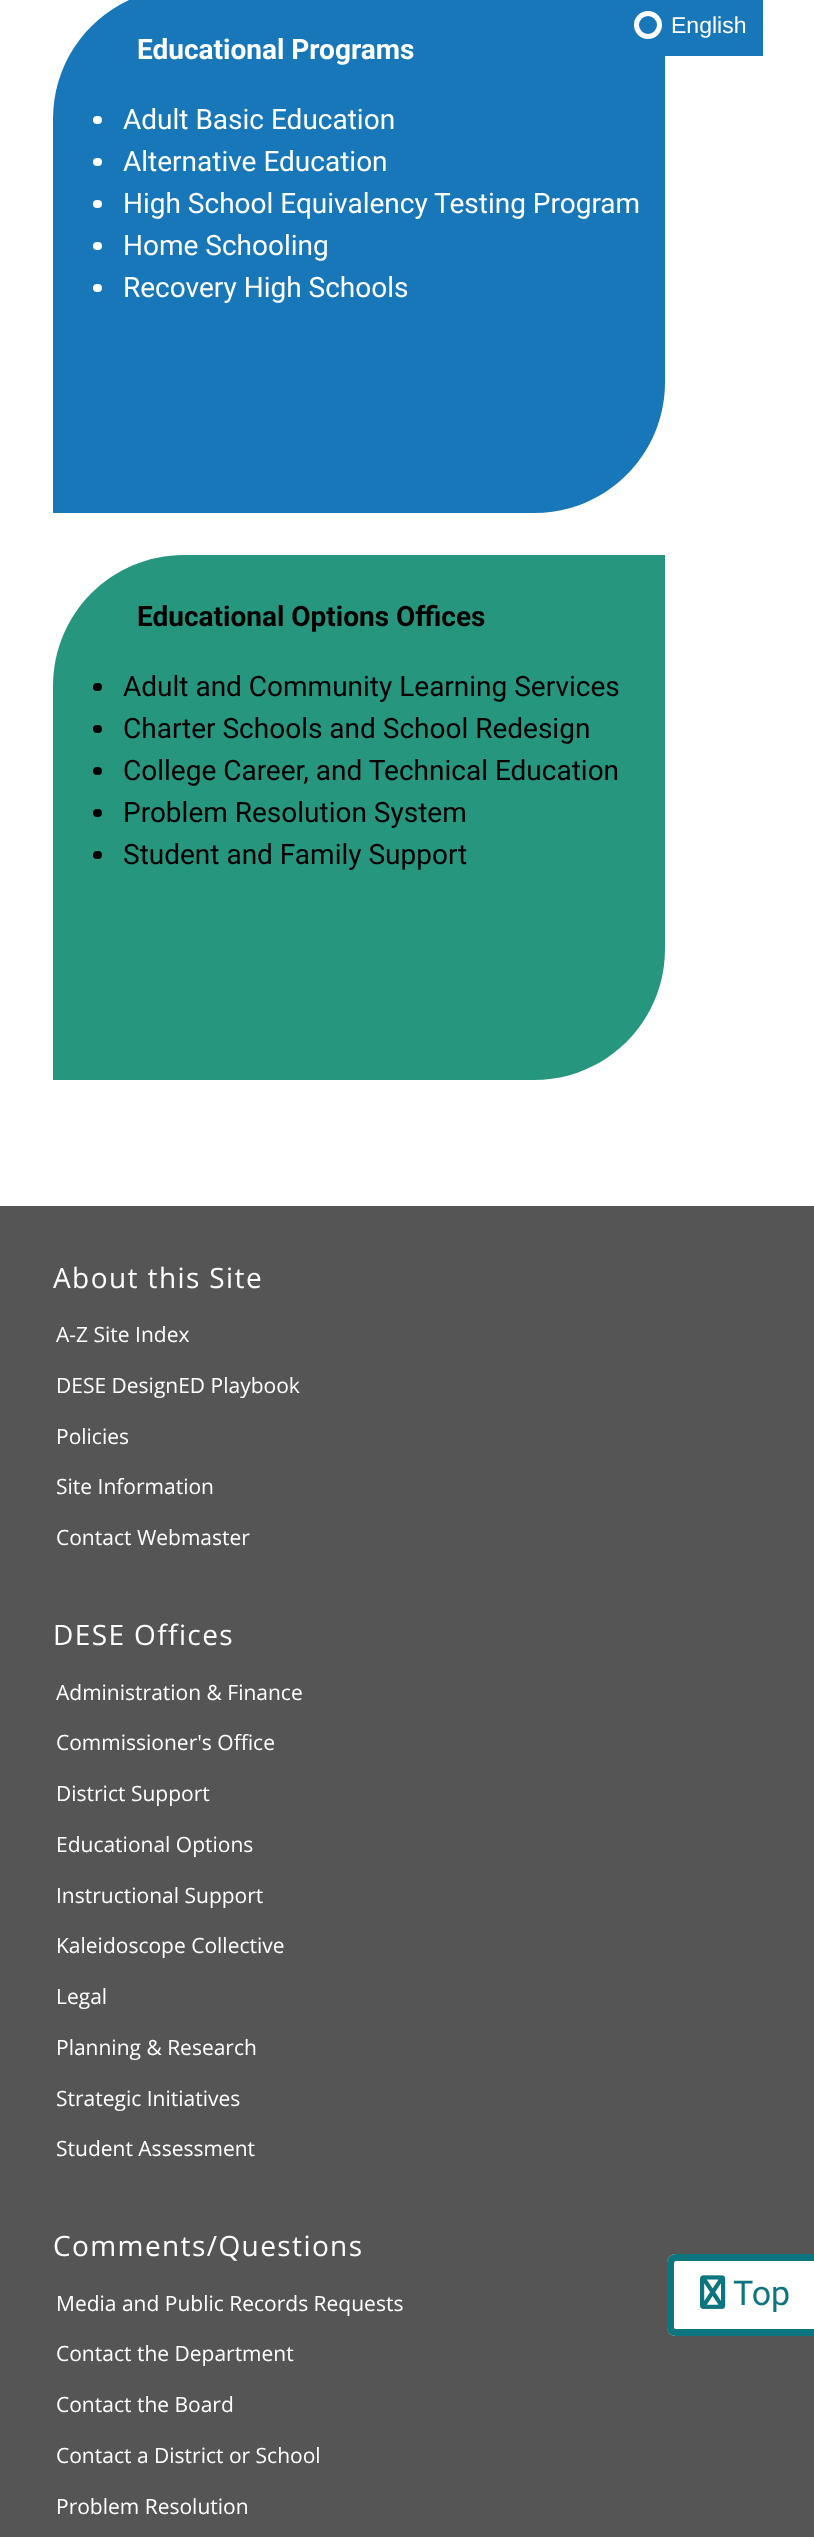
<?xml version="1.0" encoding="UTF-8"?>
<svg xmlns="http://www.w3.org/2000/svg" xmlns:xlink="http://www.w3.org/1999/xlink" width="814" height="2537">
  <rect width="100%" height="100%" fill="#ffffff" />
  <rect x="665" width="98" height="56" fill="#1877b9" />
  <path d="M 184 -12 h 481 v 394 c 0 72.5 -58.5 131 -131 131 h -481 v -394 c 0 -72.5 58.5 -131 131 -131 z" fill="#1877b9" />
  <circle cx="648" cy="25" r="11.5" fill="none" stroke="#ffffff" stroke-width="5" />
  <rect x="93" y="116" width="9" height="8" rx="4" fill="#ffffff" />
  <rect x="93" y="158" width="9" height="8" rx="4" fill="#ffffff" />
  <rect x="93" y="200" width="9" height="8" rx="4" fill="#ffffff" />
  <rect x="93" y="242" width="9" height="8" rx="4" fill="#ffffff" />
  <rect x="93" y="284" width="9" height="8" rx="4" fill="#ffffff" />
  <path d="M 184 555 h 481 v 394 c 0 72.5 -58.5 131 -131 131 h -481 v -394 c 0 -72.5 58.5 -131 131 -131 z" fill="#27967f" />
  <rect x="93" y="683" width="9" height="8" rx="4" fill="#000000" />
  <rect x="93" y="725" width="9" height="8" rx="4" fill="#000000" />
  <rect x="93" y="767" width="9" height="8" rx="4" fill="#000000" />
  <rect x="93" y="809" width="9" height="8" rx="4" fill="#000000" />
  <rect x="93" y="851" width="9" height="8" rx="4" fill="#000000" />
  <rect y="1206" width="814" height="1331" fill="#555555" />
  <path d="M 676 2254 h 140 v 82 h -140 c -5 0 -9 -4 -9 -9 v -64 c 0 -5 4 -9 9 -9 z" fill="#ffffff" />
  <path d="M 676 2254 h 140 v 82 h -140 c -5 0 -9 -4 -9 -8 v -65 c 0 -5 4 -9 9 -9 z m 0 7 h 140 v 68 h -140 c -1 0 -2 -1 -2 -1 v -65 c 0 -1 1 -2 2 -2 z" fill="#0c7580" fill-rule="evenodd" />
  <image x="700" y="2275" width="26" height="34" xlink:href="image1.png" />
  <text x="671" y="33" style="font-family: Liberation Sans; font-size: 23px; fill: #ffffff">English</text>
  <text x="137" y="59" style="font-family: Roboto; font-size: 28px; font-weight: bold; fill: #ffffff">Educational Programs</text>
  <text x="123" y="129" style="font-family: Roboto; font-size: 28px; fill: #ffffff">Adult Basic Education</text>
  <text x="123" y="171" style="font-family: Roboto; font-size: 28px; fill: #ffffff">Alternative Education</text>
  <text x="123" y="213" style="font-family: Roboto; font-size: 28px; fill: #ffffff">High School Equivalency Testing Program</text>
  <text x="123" y="255" style="font-family: Roboto; font-size: 28px; fill: #ffffff">Home Schooling</text>
  <text x="123" y="297" style="font-family: Roboto; font-size: 28px; fill: #ffffff">Recovery High Schools</text>
  <text x="137" y="626" style="font-family: Roboto; font-size: 28px; font-weight: bold; fill: #000000">Educational Options Offices</text>
  <text x="123" y="696" style="font-family: Roboto; font-size: 28px; fill: #000000">Adult and Community Learning Services</text>
  <text x="123" y="738" style="font-family: Roboto; font-size: 28px; fill: #000000">Charter Schools and School Redesign</text>
  <text x="123" y="780" style="font-family: Roboto; font-size: 28px; fill: #000000">College Career, and Technical Education</text>
  <text x="123" y="822" style="font-family: Roboto; font-size: 28px; fill: #000000">Problem Resolution System</text>
  <text x="123" y="864" style="font-family: Roboto; font-size: 28px; fill: #000000">Student and Family Support</text>
  <text x="53" y="1288" style="font-family: Open Sans; font-size: 28px; letter-spacing: 1.4px; fill: #ffffff">About this Site</text>
  <text x="56" y="1342" style="font-family: Open Sans; font-size: 21px; fill: #ffffff">A-Z Site Index</text>
  <text x="56" y="1393" style="font-family: Open Sans; font-size: 21px; fill: #ffffff">DESE DesignED Playbook</text>
  <text x="56" y="1444" style="font-family: Open Sans; font-size: 21px; fill: #ffffff">Policies</text>
  <text x="56" y="1494" style="font-family: Open Sans; font-size: 21px; fill: #ffffff">Site Information</text>
  <text x="56" y="1545" style="font-family: Open Sans; font-size: 21px; fill: #ffffff">Contact Webmaster</text>
  <text x="53" y="1645" style="font-family: Open Sans; font-size: 28px; letter-spacing: 1.4px; fill: #ffffff">DESE Offices</text>
  <text x="56" y="1700" style="font-family: Open Sans; font-size: 21px; fill: #ffffff">Administration &amp; Finance</text>
  <text x="56" y="1750" style="font-family: Open Sans; font-size: 21px; fill: #ffffff">Commissioner's Office</text>
  <text x="56" y="1801" style="font-family: Open Sans; font-size: 21px; fill: #ffffff">District Support</text>
  <text x="56" y="1852" style="font-family: Open Sans; font-size: 21px; fill: #ffffff">Educational Options</text>
  <text x="56" y="1903" style="font-family: Open Sans; font-size: 21px; fill: #ffffff">Instructional Support</text>
  <text x="56" y="1953" style="font-family: Open Sans; font-size: 21px; fill: #ffffff">Kaleidoscope Collective</text>
  <text x="56" y="2004" style="font-family: Open Sans; font-size: 21px; fill: #ffffff">Legal</text>
  <text x="56" y="2055" style="font-family: Open Sans; font-size: 21px; fill: #ffffff">Planning &amp; Research</text>
  <text x="56" y="2106" style="font-family: Open Sans; font-size: 21px; fill: #ffffff">Strategic Initiatives</text>
  <text x="56" y="2156" style="font-family: Open Sans; font-size: 21px; fill: #ffffff">Student Assessment</text>
  <text x="53" y="2256" style="font-family: Open Sans; font-size: 28px; letter-spacing: 1.4px; fill: #ffffff">Comments/Questions</text>
  <text x="56" y="2311" style="font-family: Open Sans; font-size: 21px; fill: #ffffff">Media and Public Records Requests</text>
  <text x="56" y="2361" style="font-family: Open Sans; font-size: 21px; fill: #ffffff">Contact the Department</text>
  <text x="56" y="2412" style="font-family: Open Sans; font-size: 21px; fill: #ffffff">Contact the Board</text>
  <text x="56" y="2463" style="font-family: Open Sans; font-size: 21px; fill: #ffffff">Contact a District or School</text>
  <text x="56" y="2514" style="font-family: Open Sans; font-size: 21px; fill: #ffffff">Problem Resolution</text>
  <text x="733" y="2305" style="font-family: Roboto; font-size: 34px; fill: #0c7580">Top</text>
</svg>
